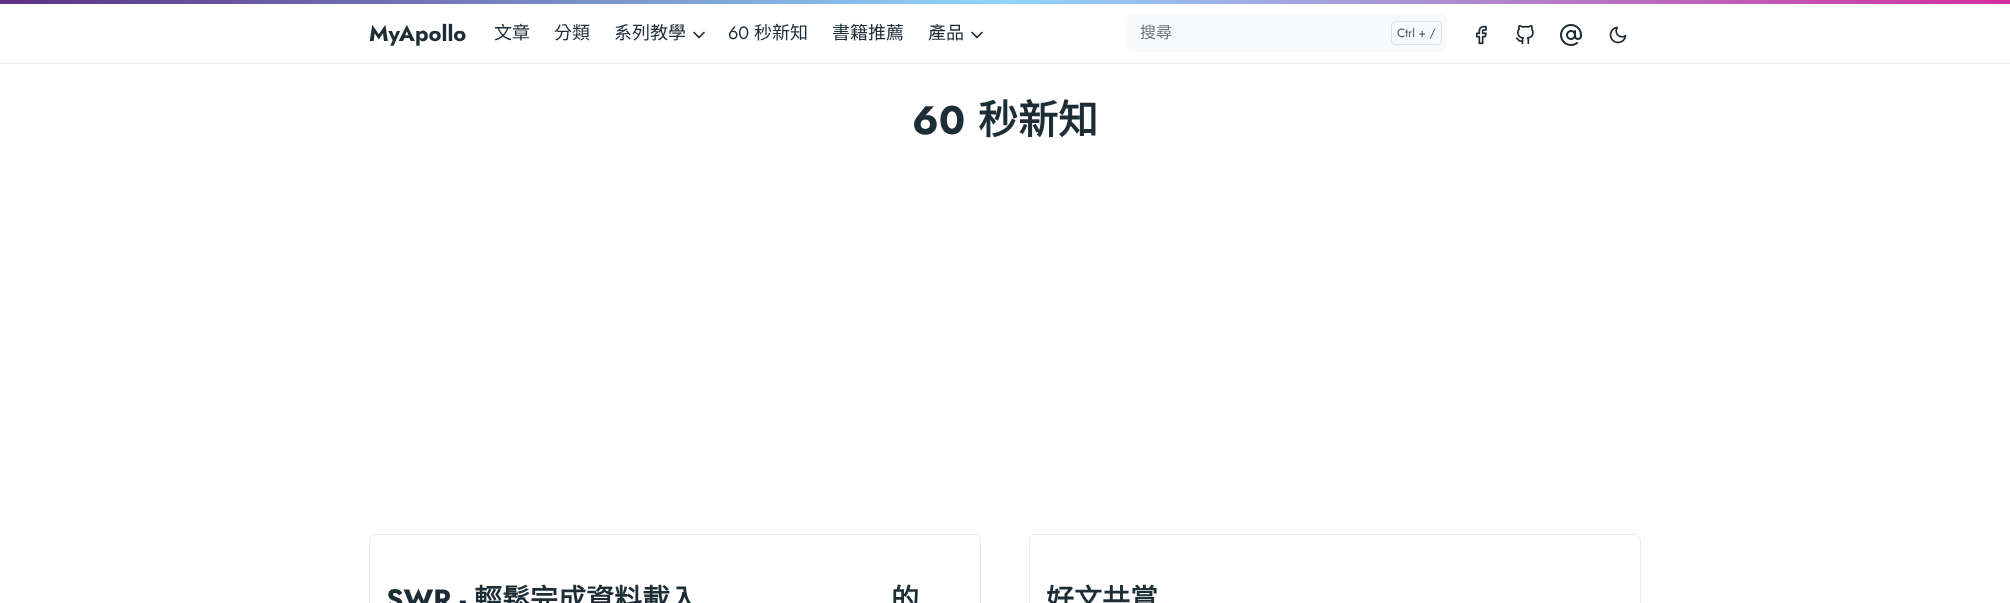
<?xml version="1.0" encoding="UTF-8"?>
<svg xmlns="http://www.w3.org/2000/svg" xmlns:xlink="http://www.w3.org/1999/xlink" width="2010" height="603">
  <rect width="100%" height="100%" fill="#ffffff" />
  <image x="0" y="0" width="2010" height="4" xlink:href="image1.png" />
  <rect y="63" width="2010" height="1" fill="#e9ecef" />
  <path d="M 694 32.5 l 5 5 l 5 -5" fill="none" stroke="#1d2d35" stroke-width="1.7" stroke-linecap="round" stroke-linejoin="round" />
  <path d="M 972 32.5 l 5 5 l 5 -5" fill="none" stroke="#1d2d35" stroke-width="1.7" stroke-linecap="round" stroke-linejoin="round" />
  <rect x="1127" y="14" width="320" height="38" rx="6" fill="#f8f9fa" />
  <rect x="1391.5" y="21.5" width="50" height="23" rx="3.5" fill="none" stroke="#dee2e6" />
  <image x="1476" y="25" width="11" height="20" xlink:href="image2.png" />
  <image x="1515" y="25" width="19" height="20" xlink:href="image3.png" />
  <image x="1560" y="24" width="22" height="22" xlink:href="image4.png" />
  <image x="1609" y="26" width="18" height="18" xlink:href="image5.png" />
  <rect x="369.5" y="534.5" width="611" height="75" rx="5.5" fill="none" stroke="#e9ecef" />
  <rect x="1029.5" y="534.5" width="611" height="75" rx="5.5" fill="none" stroke="#e9ecef" />
  <text x="369" y="41" style="font-family: Jost; font-size: 22px; font-weight: bold; fill: #1d2d35">MyApollo</text>
  <text x="494" y="39" style="font-family: Noto Sans CJK TC; font-size: 18px; fill: #1d2d35">文章</text>
  <text x="554" y="39" style="font-family: Noto Sans CJK TC; font-size: 18px; fill: #1d2d35">分類</text>
  <text x="614" y="39" style="font-family: Noto Sans CJK TC; font-size: 18px; fill: #1d2d35">系列教學</text>
  <text x="728" y="39" style="font-family: Jost; font-size: 18px; fill: #1d2d35">60</text>
  <text x="754" y="39" style="font-family: Noto Sans CJK TC; font-size: 18px; fill: #1d2d35">秒新知</text>
  <text x="832" y="39" style="font-family: Noto Sans CJK TC; font-size: 18px; fill: #1d2d35">書籍推薦</text>
  <text x="928" y="39" style="font-family: Noto Sans CJK TC; font-size: 18px; fill: #1d2d35">產品</text>
  <text x="1140" y="38" style="font-family: Noto Sans CJK TC; font-size: 16px; fill: #6c757d">搜尋</text>
  <text x="1397" y="37" style="font-family: Jost; font-size: 12px; fill: #495057">Ctrl + /</text>
  <text x="912" y="134" style="font-family: Jost; font-size: 40px; font-weight: bold; fill: #1d2d35">60</text>
  <text x="978" y="134" style="font-family: Noto Sans CJK TC; font-size: 40px; font-weight: bold; fill: #1d2d35">秒新知</text>
  <text x="386" y="609" style="font-family: Jost; font-size: 28px; font-weight: bold; fill: #1d2d35">SWR -</text>
  <text x="474" y="609" style="font-family: Noto Sans CJK TC; font-size: 28px; font-weight: bold; fill: #1d2d35">輕鬆完成資料載入</text>
  <text x="891" y="609" style="font-family: Noto Sans CJK TC; font-size: 28px; font-weight: bold; fill: #1d2d35">的</text>
  <text x="1046" y="609" style="font-family: Noto Sans CJK TC; font-size: 28px; font-weight: bold; fill: #1d2d35">好文共賞</text>
</svg>
